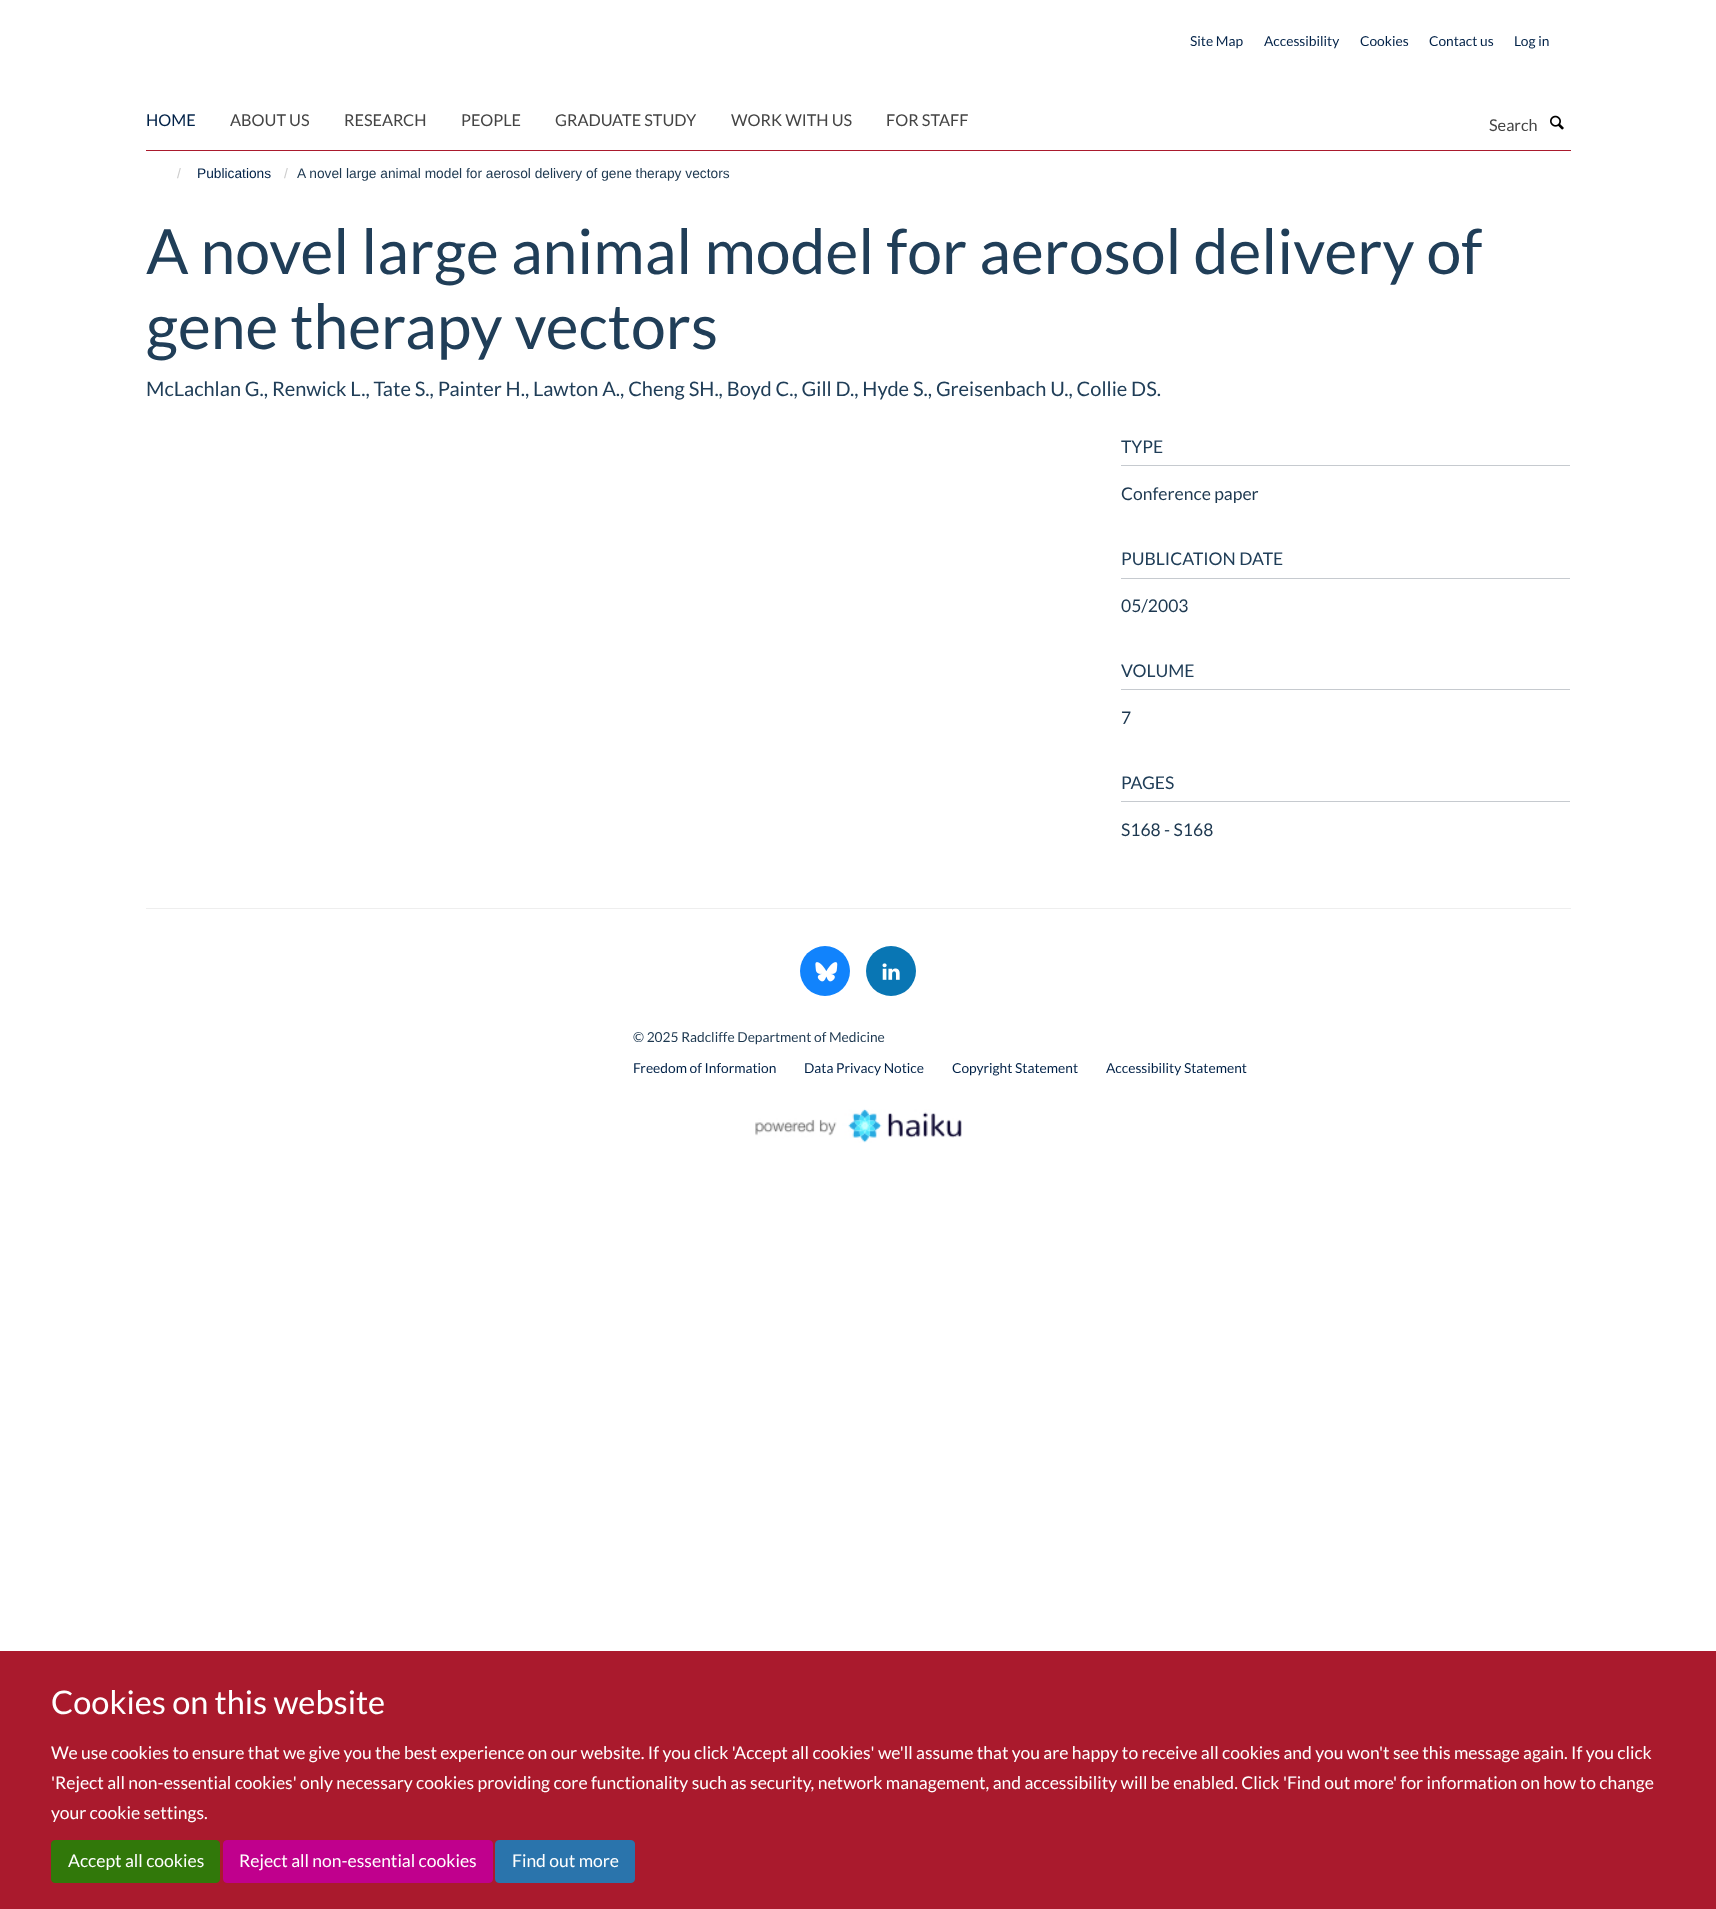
<?xml version="1.0" encoding="UTF-8"?>
<svg xmlns="http://www.w3.org/2000/svg" xmlns:xlink="http://www.w3.org/1999/xlink" width="1716" height="1909">
  <rect width="100%" height="100%" fill="#ffffff" />
  <rect x="146" y="150" width="1425" height="1" fill="#aa1a2d" />
  <image x="1550" y="115" width="14" height="15" xlink:href="image1.png" />
  <rect x="1121" y="465" width="449" height="1" fill="#c6cacf" />
  <rect x="1121" y="578" width="449" height="1" fill="#c6cacf" />
  <rect x="1121" y="689" width="449" height="1" fill="#c6cacf" />
  <rect x="1121" y="801" width="449" height="1" fill="#c6cacf" />
  <rect x="146" y="908" width="1425" height="1" fill="#eeeeee" />
  <circle cx="825" cy="971" r="25" fill="#1183fc" />
  <image x="815" y="962" width="23" height="20" xlink:href="image2.png" />
  <circle cx="891" cy="971" r="25" fill="#0976b4" />
  <image x="882" y="963" width="18" height="17" xlink:href="image3.png" />
  <image x="755" y="1108" width="207" height="35" xlink:href="image4.png" />
  <rect y="1651" width="1716" height="258" fill="#aa1a2d" />
  <rect x="51.5" y="1840.5" width="168" height="42" rx="3.5" fill="#31780a" stroke="#31780a" />
  <rect x="223.5" y="1840.5" width="269" height="42" rx="3.5" fill="#c0008d" stroke="#c0008d" />
  <rect x="495.5" y="1840.5" width="139" height="42" rx="3.5" fill="#2a74ac" stroke="#2a74ac" />
  <text x="1190" y="46" style="font-family: Lato; font-size: 13.75px; fill: #002147">Site Map</text>
  <text x="1264" y="46" style="font-family: Lato; font-size: 13.75px; fill: #002147">Accessibility</text>
  <text x="1360" y="46" style="font-family: Lato; font-size: 13.75px; fill: #002147">Cookies</text>
  <text x="1429" y="46" style="font-family: Lato; font-size: 13.75px; fill: #002147">Contact us</text>
  <text x="1514" y="46" style="font-family: Lato; font-size: 13.75px; fill: #002147">Log in</text>
  <text x="146" y="126" style="font-family: Lato; font-size: 16.25px; fill: #002147">HOME</text>
  <text x="230" y="126" style="font-family: Lato; font-size: 16.25px; fill: #444444">ABOUT US</text>
  <text x="344" y="126" style="font-family: Lato; font-size: 16.25px; fill: #444444">RESEARCH</text>
  <text x="461" y="126" style="font-family: Lato; font-size: 16.25px; fill: #444444">PEOPLE</text>
  <text x="555" y="126" style="font-family: Lato; font-size: 16.25px; fill: #444444">GRADUATE STUDY</text>
  <text x="731" y="126" style="font-family: Lato; font-size: 16.25px; fill: #444444">WORK WITH US</text>
  <text x="886" y="126" style="font-family: Lato; font-size: 16.25px; fill: #444444">FOR STAFF</text>
  <text x="1489" y="131" style="font-family: Lato; font-size: 16.25px; fill: #444444">Search</text>
  <text x="177" y="178" style="font-family: Liberation Sans; font-size: 13.75px; fill: #cccccc">/</text>
  <text x="197" y="178" style="font-family: Liberation Sans; font-size: 13.75px; fill: #002147">Publications</text>
  <text x="284" y="178" style="font-family: Liberation Sans; font-size: 13.75px; fill: #cccccc">/</text>
  <text x="297" y="178" style="font-family: Liberation Sans; font-size: 13.75px; fill: #1d3850">A novel large animal model for aerosol delivery of gene therapy vectors</text>
  <text x="146" y="274" style="font-family: Lato; font-size: 62.5px; fill: #203e58">A novel large animal model for aerosol delivery of</text>
  <text x="146" y="349" style="font-family: Lato; font-size: 62.5px; fill: #203e58">gene therapy vectors</text>
  <text x="146" y="396" style="font-family: Lato; font-size: 20px; fill: #203e58">McLachlan G., Renwick L., Tate S., Painter H., Lawton A., Cheng SH., Boyd C., Gill D., Hyde S., Greisenbach U., Collie DS.</text>
  <text x="1121" y="453" style="font-family: Lato; font-size: 17.5px; fill: #203e58">TYPE</text>
  <text x="1121" y="500" style="font-family: Lato; font-size: 17.5px; fill: #1d3850">Conference paper</text>
  <text x="1121" y="565" style="font-family: Lato; font-size: 17.5px; fill: #203e58">PUBLICATION DATE</text>
  <text x="1121" y="612" style="font-family: Lato; font-size: 17.5px; fill: #1d3850">05/2003</text>
  <text x="1121" y="677" style="font-family: Lato; font-size: 17.5px; fill: #203e58">VOLUME</text>
  <text x="1121" y="724" style="font-family: Lato; font-size: 17.5px; fill: #1d3850">7</text>
  <text x="1121" y="789" style="font-family: Lato; font-size: 17.5px; fill: #203e58">PAGES</text>
  <text x="1121" y="836" style="font-family: Lato; font-size: 17.5px; fill: #1d3850">S168 - S168</text>
  <text x="633" y="1042" style="font-family: Lato; font-size: 13.75px; fill: #1d3850">© 2025 Radcliffe Department of Medicine</text>
  <text x="633" y="1073" style="font-family: Lato; font-size: 13.75px; fill: #002147">Freedom of Information</text>
  <text x="804" y="1073" style="font-family: Lato; font-size: 13.75px; fill: #002147">Data Privacy Notice</text>
  <text x="952" y="1073" style="font-family: Lato; font-size: 13.75px; fill: #002147">Copyright Statement</text>
  <text x="1106" y="1073" style="font-family: Lato; font-size: 13.75px; fill: #002147">Accessibility Statement</text>
  <text x="51" y="1714" style="font-family: Lato; font-size: 32.5px; fill: #ffffff">Cookies on this website</text>
  <text x="51" y="1759" style="font-family: Lato; font-size: 17.5px; fill: #ffffff">We use cookies to ensure that we give you the best experience on our website. If you click 'Accept all cookies' we'll assume that you are happy to receive all cookies and you won't see this message again. If you click</text>
  <text x="51" y="1789" style="font-family: Lato; font-size: 17.5px; fill: #ffffff">'Reject all non-essential cookies' only necessary cookies providing core functionality such as security, network management, and accessibility will be enabled. Click 'Find out more' for information on how to change</text>
  <text x="51" y="1819" style="font-family: Lato; font-size: 17.5px; fill: #ffffff">your cookie settings.</text>
  <text x="68" y="1867" style="font-family: Lato; font-size: 17.5px; fill: #ffffff">Accept all cookies</text>
  <text x="239" y="1867" style="font-family: Lato; font-size: 17.5px; fill: #ffffff">Reject all non-essential cookies</text>
  <text x="512" y="1867" style="font-family: Lato; font-size: 17.5px; fill: #ffffff">Find out more</text>
</svg>
